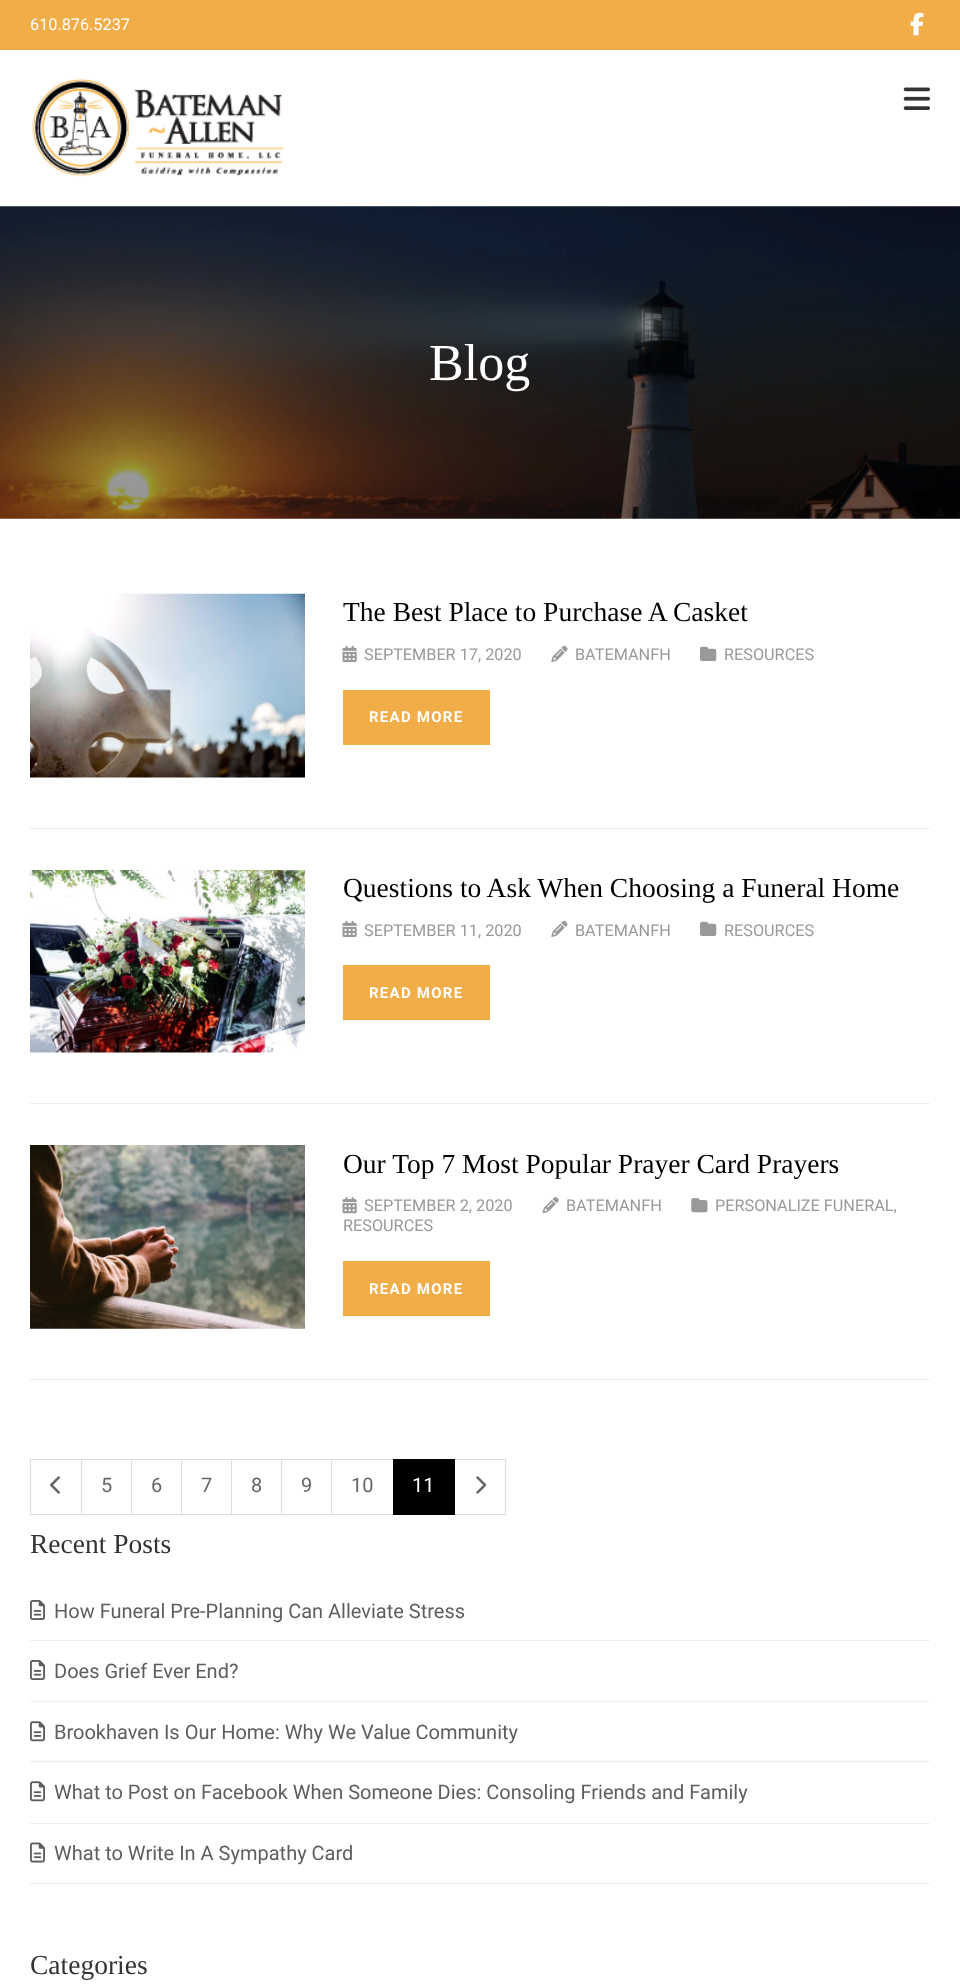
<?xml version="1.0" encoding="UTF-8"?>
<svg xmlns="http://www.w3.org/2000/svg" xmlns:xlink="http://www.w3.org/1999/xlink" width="960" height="1988">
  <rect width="100%" height="100%" fill="#ffffff" />
  <rect width="960" height="50" fill="#f1ad48" />
  <image x="910" y="12" width="14" height="24" xlink:href="image1.png" />
  <image x="32" y="78" width="252" height="99" xlink:href="image2.png" />
  <image x="903" y="87" width="27" height="23" xlink:href="image3.png" />
  <image x="0" y="206" width="960" height="313" xlink:href="image4.png" />
  <rect x="30" y="828" width="900" height="1" fill="#eeeeee" />
  <image x="30" y="593" width="275" height="185" xlink:href="image5.png" />
  <image x="342" y="645" width="15" height="17" xlink:href="image6.png" />
  <image x="551" y="645" width="17" height="17" xlink:href="image7.png" />
  <image x="700" y="646" width="17" height="15" xlink:href="image8.png" />
  <rect x="343" y="690" width="147" height="55" fill="#f1ad48" />
  <rect x="30" y="1103" width="900" height="1" fill="#eeeeee" />
  <image x="30" y="870" width="275" height="183" xlink:href="image9.png" />
  <image x="342" y="920" width="15" height="17" xlink:href="image6.png" />
  <image x="551" y="920" width="17" height="17" xlink:href="image7.png" />
  <image x="700" y="921" width="17" height="15" xlink:href="image8.png" />
  <rect x="343" y="965" width="147" height="55" fill="#f1ad48" />
  <rect x="30" y="1379" width="900" height="1" fill="#eeeeee" />
  <image x="30" y="1145" width="275" height="184" xlink:href="image10.png" />
  <image x="342" y="1197" width="15" height="17" xlink:href="image11.png" />
  <image x="542" y="1197" width="17" height="17" xlink:href="image12.png" />
  <image x="691" y="1198" width="17" height="15" xlink:href="image13.png" />
  <rect x="343" y="1261" width="147" height="55" fill="#f1ad48" />
  <rect x="30.5" y="1459.5" width="52" height="55" fill="none" stroke="#dddddd" />
  <image x="50" y="1476" width="10" height="18" xlink:href="image14.png" />
  <rect x="82" y="1460" width="1" height="54" fill="#ffffff" />
  <rect x="81.5" y="1459.5" width="51" height="55" fill="none" stroke="#dddddd" />
  <rect x="132" y="1460" width="1" height="54" fill="#ffffff" />
  <rect x="131.5" y="1459.5" width="51" height="55" fill="none" stroke="#dddddd" />
  <rect x="182" y="1460" width="1" height="54" fill="#ffffff" />
  <rect x="181.5" y="1459.5" width="51" height="55" fill="none" stroke="#dddddd" />
  <rect x="232" y="1460" width="1" height="54" fill="#ffffff" />
  <rect x="231.5" y="1459.5" width="51" height="55" fill="none" stroke="#dddddd" />
  <rect x="282" y="1460" width="1" height="54" fill="#ffffff" />
  <rect x="281.5" y="1459.5" width="51" height="55" fill="none" stroke="#dddddd" />
  <rect x="332" y="1460" width="1" height="54" fill="#ffffff" />
  <rect x="331.5" y="1459.5" width="62" height="55" fill="none" stroke="#dddddd" />
  <rect x="454.5" y="1459.5" width="51" height="55" fill="none" stroke="#dddddd" />
  <rect x="393" y="1459" width="62" height="56" fill="#000000" />
  <image x="476" y="1476" width="11" height="18" xlink:href="image15.png" />
  <rect x="30" y="1640" width="900" height="1" fill="#eeeeee" />
  <image x="30" y="1600" width="15" height="20" xlink:href="image16.png" />
  <rect x="30" y="1701" width="900" height="1" fill="#eeeeee" />
  <image x="30" y="1660" width="15" height="20" xlink:href="image16.png" />
  <rect x="30" y="1761" width="900" height="1" fill="#eeeeee" />
  <image x="30" y="1721" width="15" height="21" xlink:href="image17.png" />
  <rect x="30" y="1823" width="900" height="1" fill="#eeeeee" />
  <image x="30" y="1781" width="15" height="21" xlink:href="image17.png" />
  <rect x="30" y="1883" width="900" height="1" fill="#eeeeee" />
  <image x="30" y="1842" width="15" height="21" xlink:href="image18.png" />
  <text x="30" y="30" style="font-family: Roboto; font-size: 16.25px; fill: #ffffff">610.876.5237</text>
  <text x="429" y="380" style="font-family: Liberation Serif; font-size: 52px; fill: #ffffff">Blog</text>
  <text x="343" y="621" style="font-family: Liberation Serif; font-size: 27.5px; fill: #000000">The Best Place to Purchase A Casket</text>
  <text x="364" y="660" style="font-family: Roboto; font-size: 16.25px; fill: #999999">SEPTEMBER 17, 2020</text>
  <text x="575" y="660" style="font-family: Roboto; font-size: 16.25px; fill: #999999">BATEMANFH</text>
  <text x="724" y="660" style="font-family: Roboto; font-size: 16.25px; fill: #999999">RESOURCES</text>
  <text x="369" y="722" style="font-family: Roboto; font-size: 15px; font-weight: bold; letter-spacing: 1.25px; fill: #ffffff">READ MORE</text>
  <text x="343" y="897" style="font-family: Liberation Serif; font-size: 27.5px; fill: #000000">Questions to Ask When Choosing a Funeral Home</text>
  <text x="364" y="936" style="font-family: Roboto; font-size: 16.25px; fill: #999999">SEPTEMBER 11, 2020</text>
  <text x="575" y="936" style="font-family: Roboto; font-size: 16.25px; fill: #999999">BATEMANFH</text>
  <text x="724" y="936" style="font-family: Roboto; font-size: 16.25px; fill: #999999">RESOURCES</text>
  <text x="369" y="998" style="font-family: Roboto; font-size: 15px; font-weight: bold; letter-spacing: 1.25px; fill: #ffffff">READ MORE</text>
  <text x="343" y="1173" style="font-family: Liberation Serif; font-size: 27.5px; fill: #000000">Our Top 7 Most Popular Prayer Card Prayers</text>
  <text x="364" y="1211" style="font-family: Roboto; font-size: 16.25px; fill: #999999">SEPTEMBER 2, 2020</text>
  <text x="566" y="1211" style="font-family: Roboto; font-size: 16.25px; fill: #999999">BATEMANFH</text>
  <text x="715" y="1211" style="font-family: Roboto; font-size: 16.25px; fill: #999999">PERSONALIZE FUNERAL,</text>
  <text x="343" y="1231" style="font-family: Roboto; font-size: 16.25px; fill: #999999">RESOURCES</text>
  <text x="369" y="1294" style="font-family: Roboto; font-size: 15px; font-weight: bold; letter-spacing: 1.25px; fill: #ffffff">READ MORE</text>
  <text x="101" y="1492" style="font-family: Roboto; font-size: 20px; fill: #666666">5</text>
  <text x="151" y="1492" style="font-family: Roboto; font-size: 20px; fill: #666666">6</text>
  <text x="201" y="1492" style="font-family: Roboto; font-size: 20px; fill: #666666">7</text>
  <text x="251" y="1492" style="font-family: Roboto; font-size: 20px; fill: #666666">8</text>
  <text x="301" y="1492" style="font-family: Roboto; font-size: 20px; fill: #666666">9</text>
  <text x="351" y="1492" style="font-family: Roboto; font-size: 20px; fill: #666666">10</text>
  <text x="412" y="1492" style="font-family: Roboto; font-size: 20px; fill: #ffffff">11</text>
  <text x="30" y="1553" style="font-family: Liberation Serif; font-size: 27.5px; fill: #333333">Recent Posts</text>
  <text x="54" y="1618" style="font-family: Roboto; font-size: 20px; fill: #5e5e5e">How Funeral Pre-Planning Can Alleviate Stress</text>
  <text x="54" y="1678" style="font-family: Roboto; font-size: 20px; fill: #5e5e5e">Does Grief Ever End?</text>
  <text x="54" y="1739" style="font-family: Roboto; font-size: 20px; fill: #5e5e5e">Brookhaven Is Our Home: Why We Value Community</text>
  <text x="54" y="1799" style="font-family: Roboto; font-size: 20px; fill: #5e5e5e">What to Post on Facebook When Someone Dies: Consoling Friends and Family</text>
  <text x="54" y="1860" style="font-family: Roboto; font-size: 20px; fill: #5e5e5e">What to Write In A Sympathy Card</text>
  <text x="30" y="1974" style="font-family: Liberation Serif; font-size: 27.5px; fill: #333333">Categories</text>
</svg>
